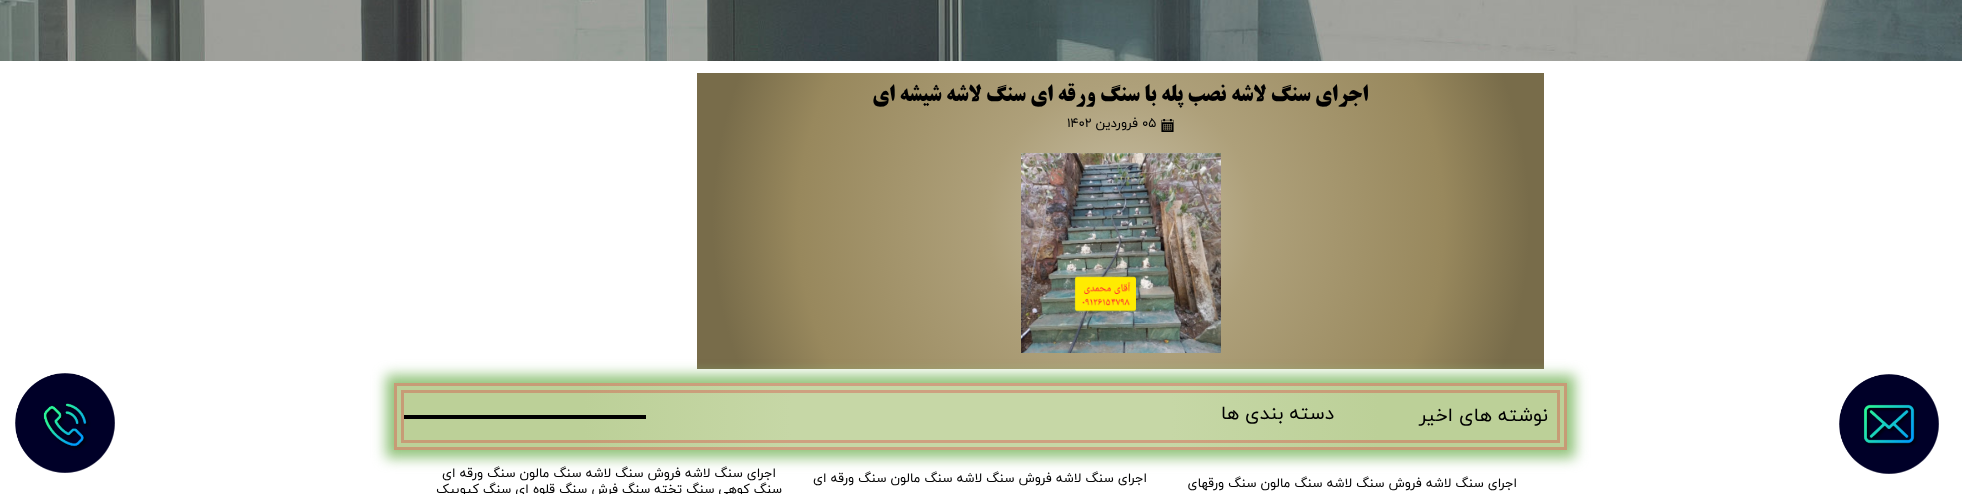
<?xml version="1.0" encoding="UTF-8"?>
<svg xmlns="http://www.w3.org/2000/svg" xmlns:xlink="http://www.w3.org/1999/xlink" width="1962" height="494">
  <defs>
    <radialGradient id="g1" gradientUnits="userSpaceOnUse" cx="1121" cy="221" r="449"><stop offset="0.09" stop-color="#c1b79a" /><stop offset="0.3" stop-color="#aea07a" /><stop offset="0.72" stop-color="#98885d" /><stop offset="0.91" stop-color="#786c4a" /></radialGradient>
    <radialGradient id="g2" gradientUnits="userSpaceOnUse" cx="-172" cy="370" r="577"><stop offset="0.33" stop-color="#c6d7a6" /><stop offset="0.69" stop-color="#bcd098" /></radialGradient>
    <radialGradient id="g3" gradientUnits="userSpaceOnUse" cx="981" cy="370" r="577"><stop offset="0.33" stop-color="#c6d7a6" /><stop offset="0.69" stop-color="#bcd098" /></radialGradient>
    <radialGradient id="g4" gradientUnits="userSpaceOnUse" cx="2134" cy="370" r="577"><stop offset="0.33" stop-color="#c6d7a6" /><stop offset="0.69" stop-color="#bcd098" /></radialGradient>
    <radialGradient id="g5" gradientUnits="userSpaceOnUse" cx="-172" cy="417" r="577"><stop offset="0.33" stop-color="#c6d7a6" /><stop offset="0.69" stop-color="#bcd098" /></radialGradient>
    <radialGradient id="g6" gradientUnits="userSpaceOnUse" cx="981" cy="417" r="577"><stop offset="0.33" stop-color="#c6d7a6" /><stop offset="0.69" stop-color="#bcd098" /></radialGradient>
    <radialGradient id="g7" gradientUnits="userSpaceOnUse" cx="2134" cy="417" r="577"><stop offset="0.33" stop-color="#c6d7a6" /><stop offset="0.69" stop-color="#bcd098" /></radialGradient>
    <radialGradient id="g8" gradientUnits="userSpaceOnUse" cx="-172" cy="464" r="577"><stop offset="0.33" stop-color="#c6d7a6" /><stop offset="0.69" stop-color="#bcd098" /></radialGradient>
    <radialGradient id="g9" gradientUnits="userSpaceOnUse" cx="981" cy="464" r="577"><stop offset="0.33" stop-color="#c6d7a6" /><stop offset="0.69" stop-color="#bcd098" /></radialGradient>
    <radialGradient id="g10" gradientUnits="userSpaceOnUse" cx="2134" cy="464" r="577"><stop offset="0.33" stop-color="#c6d7a6" /><stop offset="0.69" stop-color="#bcd098" /></radialGradient>
  </defs>
  <rect width="100%" height="100%" fill="#ffffff" />
  <image x="0" y="0" width="1962" height="61" xlink:href="image1.png" />
  <rect x="697" y="73" width="847" height="296" fill="url(#g1)" />
  <image x="1161" y="119" width="13" height="13" xlink:href="image2.png" />
  <image x="1021" y="153" width="200" height="200" xlink:href="image3.png" />
  <rect x="386" y="375" width="1189" height="83" fill="#93c47d" filter="blur(6.5px)" />
  <rect x="394" y="383" width="10" height="10" fill="url(#g2)" />
  <rect x="404" y="383" width="1153" height="10" fill="url(#g3)" />
  <rect x="1557" y="383" width="10" height="10" fill="url(#g4)" />
  <rect x="394" y="393" width="10" height="47" fill="url(#g5)" />
  <rect x="404" y="393" width="1153" height="47" fill="url(#g6)" />
  <rect x="1557" y="393" width="10" height="47" fill="url(#g7)" />
  <rect x="394" y="440" width="10" height="10" fill="url(#g8)" />
  <rect x="404" y="440" width="1153" height="10" fill="url(#g9)" />
  <rect x="1557" y="440" width="10" height="10" fill="url(#g10)" />
  <rect x="395.5" y="384.5" width="1170" height="64" fill="none" stroke="#e21c21" stroke-opacity="0.29" stroke-width="3" />
  <rect x="402.5" y="391.5" width="1156" height="50" fill="none" stroke="#e21c21" stroke-opacity="0.29" stroke-width="3" />
  <rect x="404" y="415" width="242" height="4" fill="#000000" />
  <image x="1839" y="374" width="100" height="100" xlink:href="image4.png" />
  <image x="15" y="373" width="100" height="100" xlink:href="image5.png" />
  <text x="1368" y="101" style="font-family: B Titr; font-size: 23px; font-weight: bold; direction: rtl; fill: #000000">اجرای سنگ لاشه نصب پله با سنگ ورقه ای سنگ لاشه شیشه ای</text>
  <text x="1142" y="127" style="font-family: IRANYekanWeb; font-size: 13px; fill: #000000">۰۵</text>
  <text x="1138" y="127" style="font-family: IRANYekanWeb; font-size: 13px; direction: rtl; fill: #000000">فروردین</text>
  <text x="1067" y="127" style="font-family: IRANYekanWeb; font-size: 13px; fill: #000000">۱۴۰۲</text>
  <text x="1548" y="421" style="font-family: IRANYekanWeb; font-size: 19px; direction: rtl; fill: #000000">نوشته های اخیر</text>
  <text x="1334" y="419" style="font-family: IRANYekanWeb; font-size: 19px; direction: rtl; fill: #000000">دسته بندی ها</text>
  <text x="1517" y="487" style="font-family: IRANYekanWeb; font-size: 13px; direction: rtl; fill: #000000">اجرای سنگ لاشه فروش سنگ لاشه سنگ مالون سنگ ورقهای</text>
  <text x="1147" y="482" style="font-family: IRANYekanWeb; font-size: 13px; direction: rtl; fill: #000000">اجرای سنگ لاشه فروش سنگ لاشه سنگ مالون سنگ ورقه ای</text>
  <text x="776" y="477" style="font-family: IRANYekanWeb; font-size: 13px; direction: rtl; fill: #000000">اجرای سنگ لاشه فروش سنگ لاشه سنگ مالون سنگ ورقه ای</text>
  <text x="782" y="493" style="font-family: IRANYekanWeb; font-size: 13px; direction: rtl; fill: #000000">سنگ کوهی سنگ تخته سنگ فرش سنگ قلوه ای سنگ کیوبیک</text>
</svg>
